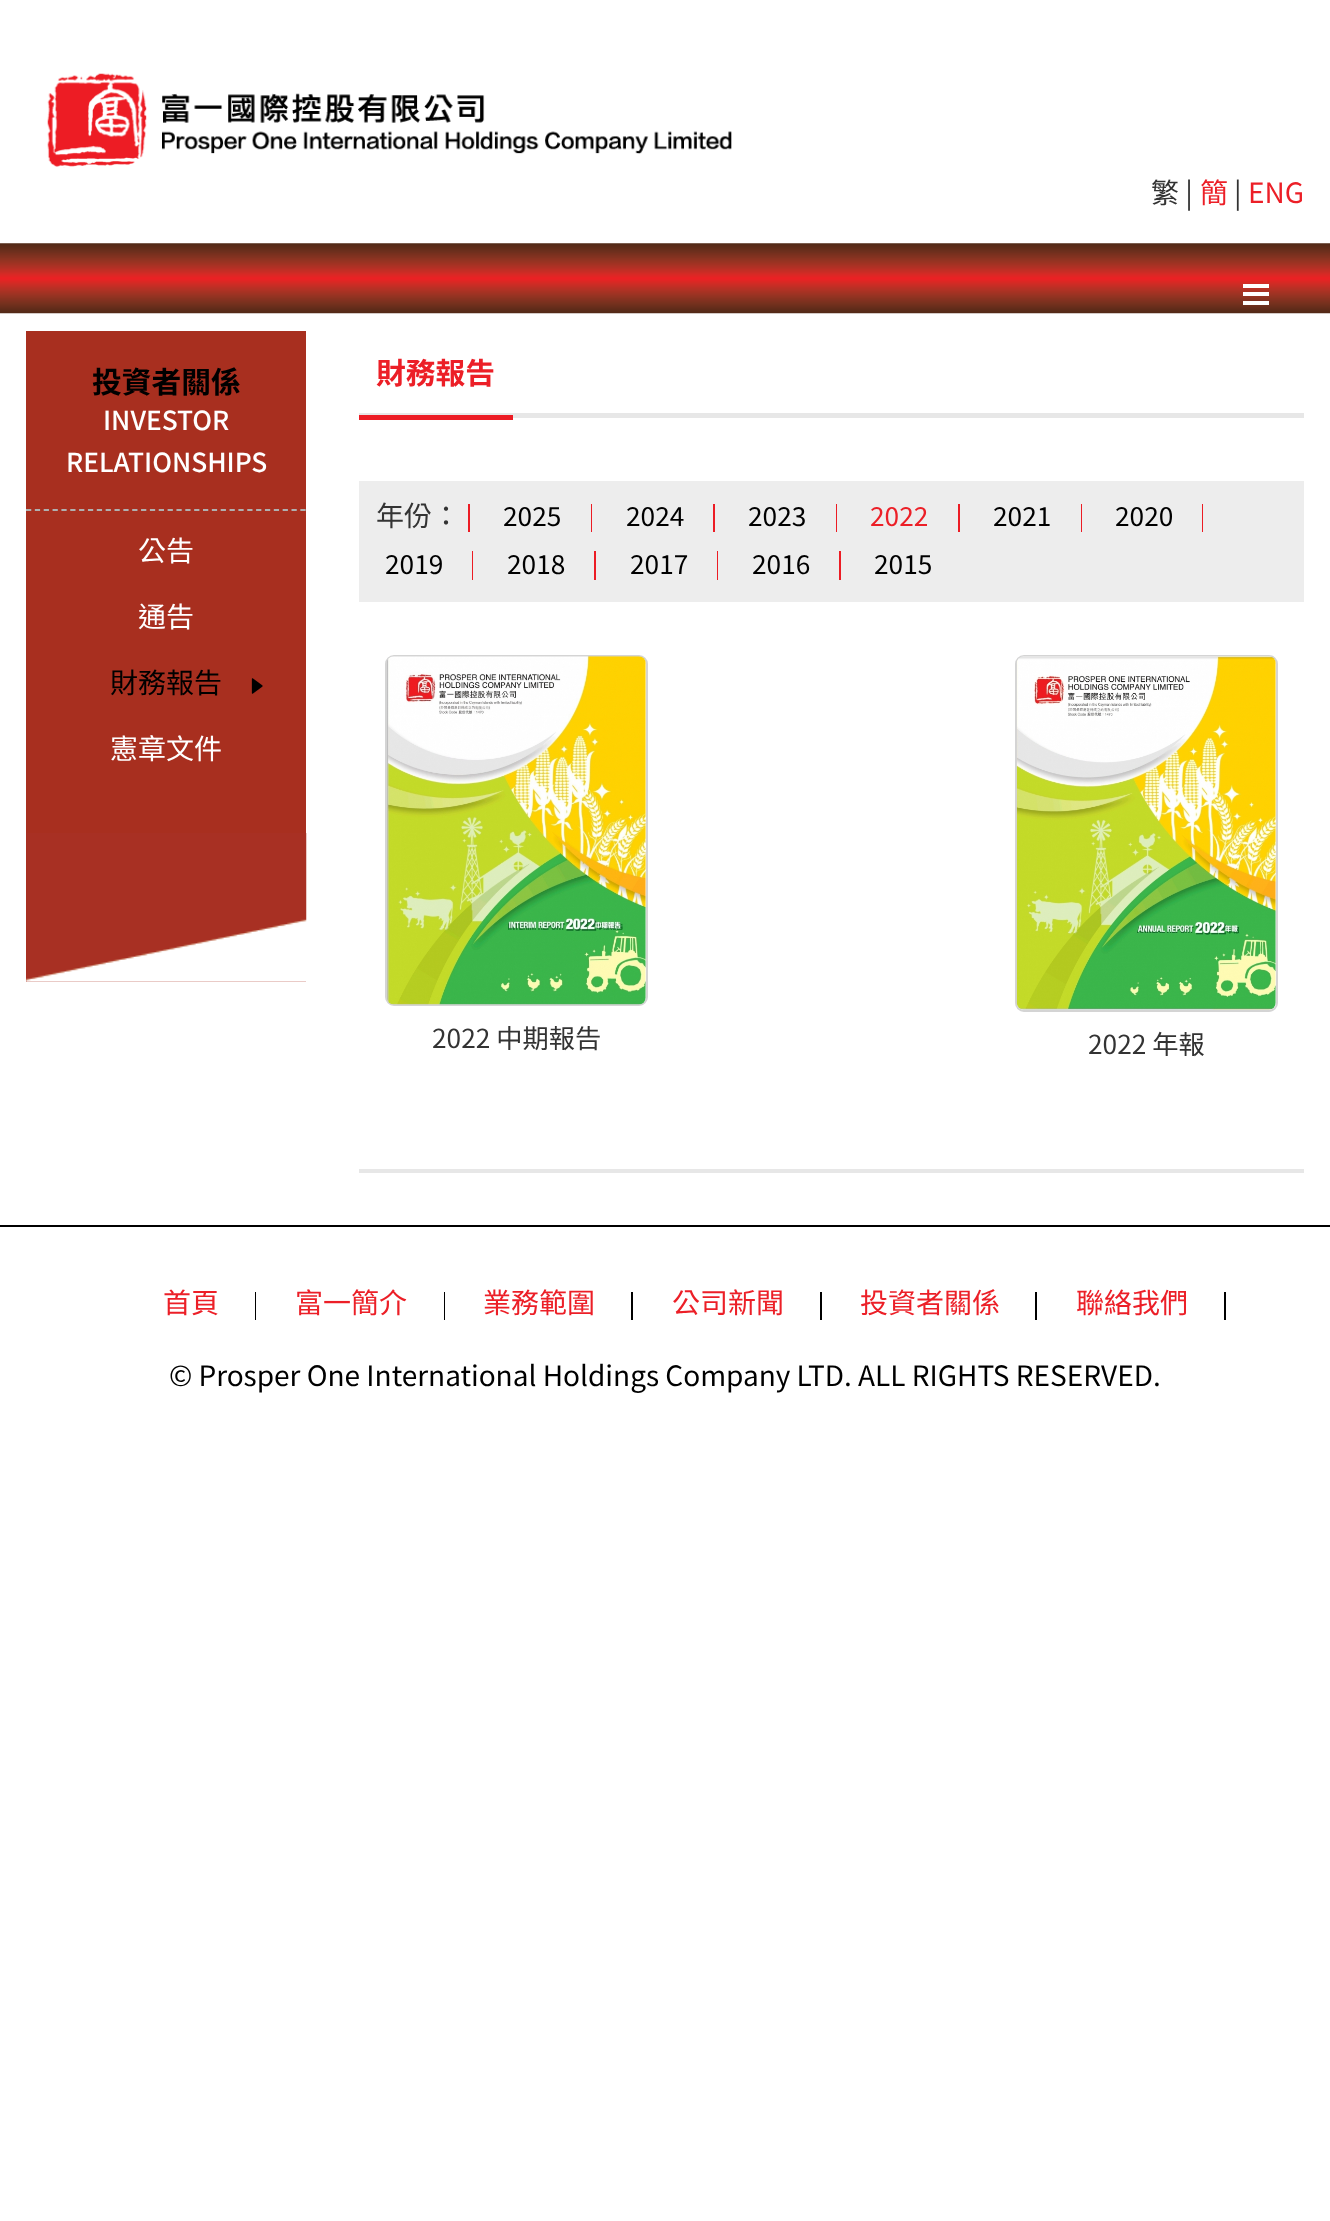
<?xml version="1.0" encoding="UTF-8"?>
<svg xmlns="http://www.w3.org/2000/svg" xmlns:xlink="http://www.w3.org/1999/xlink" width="1330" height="2221">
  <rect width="100%" height="100%" fill="#ffffff" />
  <image x="47" y="73" width="685" height="95" xlink:href="image1.png" />
  <image x="0" y="243" width="1330" height="71" xlink:href="image2.png" />
  <rect x="1243" y="284" width="26" height="4" fill="#ffffff" />
  <rect x="1243" y="292" width="26" height="4" fill="#ffffff" />
  <rect x="1243" y="301" width="26" height="4" fill="#ffffff" />
  <rect x="26" y="331" width="280" height="651" fill="#a82f1f" />
  <path d="M 26 510 h 280" fill="none" stroke="#b0b0b0" stroke-width="1.8" stroke-dasharray="5.25 3.6" />
  <image x="251" y="678" width="12" height="16" xlink:href="image3.png" />
  <image x="26" y="833" width="281" height="149" xlink:href="image4.png" />
  <rect x="359" y="413" width="945" height="5" fill="#e7e7e7" />
  <rect x="359" y="415" width="154" height="5" fill="#ec1c24" />
  <rect x="359" y="481" width="945" height="121" fill="#ededed" />
  <rect x="468" y="504" width="2" height="28" fill="#ec1c24" />
  <rect x="591" y="504" width="1" height="28" fill="#ec1c24" />
  <rect x="713" y="504" width="2" height="28" fill="#ec1c24" />
  <rect x="836" y="504" width="1" height="28" fill="#ec1c24" />
  <rect x="958" y="504" width="2" height="28" fill="#ec1c24" />
  <rect x="1081" y="504" width="1" height="28" fill="#ec1c24" />
  <rect x="1202" y="504" width="1" height="28" fill="#ec1c24" />
  <rect x="472" y="551" width="1" height="29" fill="#ec1c24" />
  <rect x="594" y="551" width="2" height="29" fill="#ec1c24" />
  <rect x="717" y="551" width="1" height="29" fill="#ec1c24" />
  <rect x="839" y="551" width="2" height="29" fill="#ec1c24" />
  <rect x="359" y="1169" width="945" height="4" fill="#e7e7e7" />
  <rect x="386" y="656" width="261" height="349" rx="8" fill="none" stroke="#d4d4d4" stroke-width="2" />
  <image x="387" y="656" width="259" height="349" xlink:href="image5.png" />
  <rect x="1016" y="656" width="261" height="355" rx="8" fill="none" stroke="#d4d4d4" stroke-width="2" />
  <image x="1016" y="656" width="260" height="354" xlink:href="image6.png" />
  <rect y="1225" width="1330" height="2" fill="#000000" />
  <rect x="255" y="1292" width="1" height="28" fill="#000000" />
  <rect x="444" y="1292" width="1" height="28" fill="#000000" />
  <rect x="631" y="1292" width="2" height="28" fill="#000000" />
  <rect x="820" y="1292" width="2" height="28" fill="#000000" />
  <rect x="1035" y="1292" width="2" height="28" fill="#000000" />
  <rect x="1224" y="1292" width="2" height="28" fill="#000000" />
  <text x="1151" y="203" style="font-family: Noto Sans TC; font-size: 28px; fill: #333333">繁 |</text>
  <text x="1200" y="203" style="font-family: Noto Sans TC; font-size: 28px; fill: #ec1f27">簡</text>
  <text x="1234" y="203" style="font-family: Noto Sans TC; font-size: 28px; fill: #333333">|</text>
  <text x="1248" y="203" style="font-family: Noto Sans TC; font-size: 28px; fill: #ec1f27">ENG</text>
  <text x="92" y="393" style="font-family: Noto Sans TC; font-size: 29.75px; font-weight: bold; fill: #000000">投資者關係</text>
  <text x="103" y="430" style="font-family: Noto Sans TC; font-size: 26.25px; font-weight: 500; fill: #ffffff">INVESTOR</text>
  <text x="66" y="472" style="font-family: Noto Sans TC; font-size: 26.25px; font-weight: 500; fill: #ffffff">RELATIONSHIPS</text>
  <text x="138" y="561" style="font-family: Noto Sans TC; font-size: 28px; fill: #ffffff">公告</text>
  <text x="138" y="627" style="font-family: Noto Sans TC; font-size: 28px; fill: #ffffff">通告</text>
  <text x="110" y="693" style="font-family: Noto Sans TC; font-size: 28px; fill: #000000">財務報告</text>
  <text x="110" y="759" style="font-family: Noto Sans TC; font-size: 28px; fill: #ffffff">憲章文件</text>
  <text x="376" y="384" style="font-family: Noto Sans TC; font-size: 29.75px; font-weight: bold; fill: #ec1f27">財務報告</text>
  <text x="376" y="526" style="font-family: Noto Sans TC; font-size: 28px; fill: #333333">年份：</text>
  <text x="503" y="526" style="font-family: Noto Sans TC; font-size: 26.25px; fill: #000000">2025</text>
  <text x="626" y="526" style="font-family: Noto Sans TC; font-size: 26.25px; fill: #000000">2024</text>
  <text x="748" y="526" style="font-family: Noto Sans TC; font-size: 26.25px; fill: #000000">2023</text>
  <text x="870" y="526" style="font-family: Noto Sans TC; font-size: 26.25px; fill: #ec1f27">2022</text>
  <text x="993" y="526" style="font-family: Noto Sans TC; font-size: 26.25px; fill: #000000">2021</text>
  <text x="1115" y="526" style="font-family: Noto Sans TC; font-size: 26.25px; fill: #000000">2020</text>
  <text x="385" y="574" style="font-family: Noto Sans TC; font-size: 26.25px; fill: #000000">2019</text>
  <text x="507" y="574" style="font-family: Noto Sans TC; font-size: 26.25px; fill: #000000">2018</text>
  <text x="630" y="574" style="font-family: Noto Sans TC; font-size: 26.25px; fill: #000000">2017</text>
  <text x="752" y="574" style="font-family: Noto Sans TC; font-size: 26.25px; fill: #000000">2016</text>
  <text x="874" y="574" style="font-family: Noto Sans TC; font-size: 26.25px; fill: #000000">2015</text>
  <text x="432" y="1048" style="font-family: Noto Sans TC; font-size: 26.25px; fill: #333333">2022 中期報告</text>
  <text x="1088" y="1054" style="font-family: Noto Sans TC; font-size: 26.25px; fill: #333333">2022 年報</text>
  <text x="163" y="1313" style="font-family: Noto Sans TC; font-size: 28px; fill: #ec1f27">首頁</text>
  <text x="295" y="1313" style="font-family: Noto Sans TC; font-size: 28px; fill: #ec1f27">富一簡介</text>
  <text x="483" y="1313" style="font-family: Noto Sans TC; font-size: 28px; fill: #ec1f27">業務範圍</text>
  <text x="672" y="1313" style="font-family: Noto Sans TC; font-size: 28px; fill: #ec1f27">公司新聞</text>
  <text x="860" y="1313" style="font-family: Noto Sans TC; font-size: 28px; fill: #ec1f27">投資者關係</text>
  <text x="1076" y="1313" style="font-family: Noto Sans TC; font-size: 28px; fill: #ec1f27">聯絡我們</text>
  <text x="169" y="1386" style="font-family: Noto Sans TC; font-size: 28px; fill: #000000">© Prosper One International Holdings Company LTD. ALL RIGHTS RESERVED.</text>
</svg>
